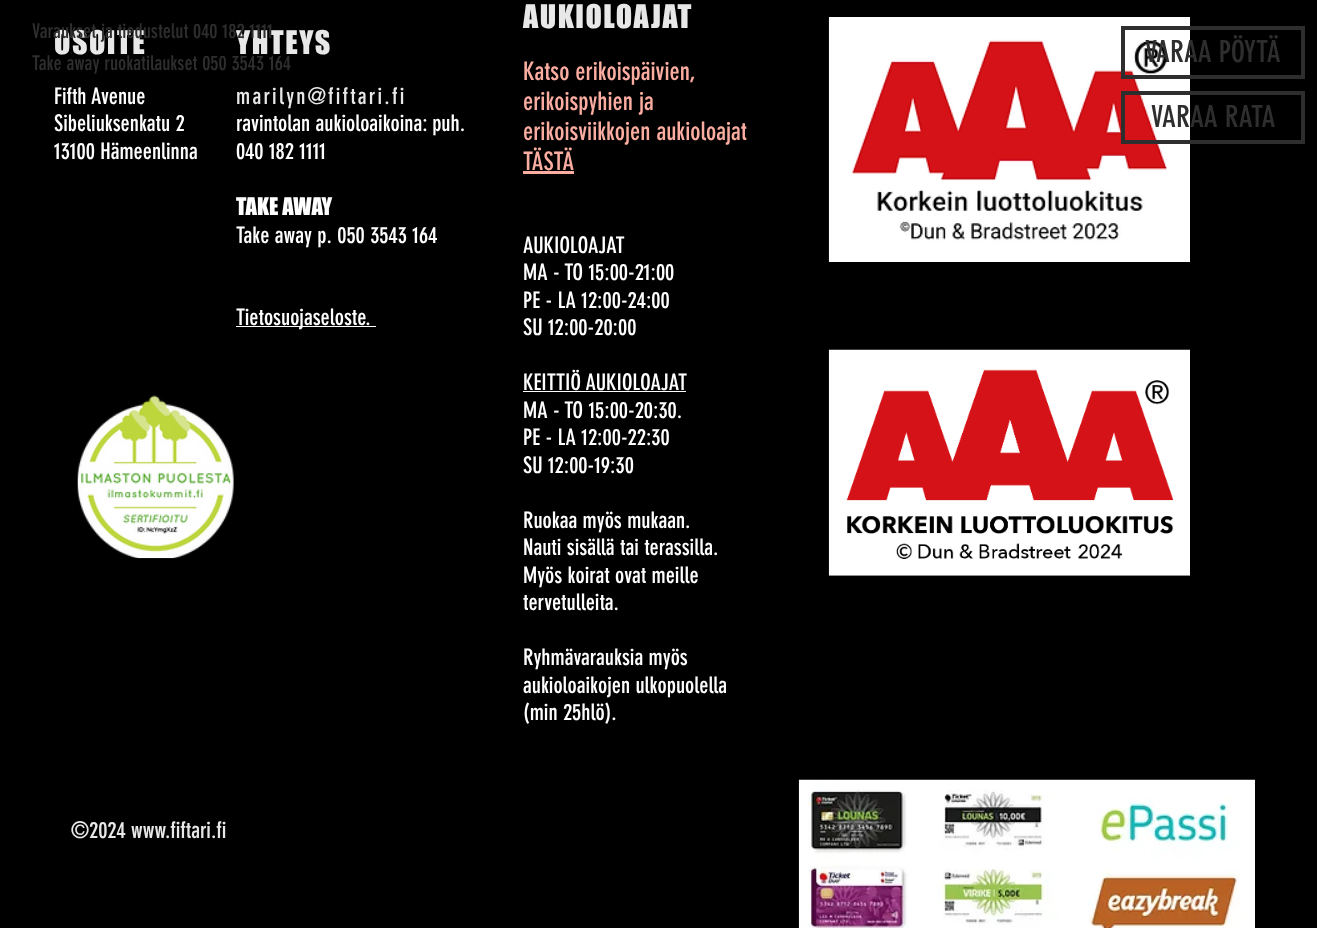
<?xml version="1.0" encoding="UTF-8"?>
<svg xmlns="http://www.w3.org/2000/svg" xmlns:xlink="http://www.w3.org/1999/xlink" width="1317" height="928">
  <rect width="100%" height="100%" fill="#000000" />
  <rect x="236" y="326" width="140" height="1" fill="#ffffff" />
  <rect x="523" y="171" width="51" height="3" fill="#faada0" />
  <rect x="523" y="391" width="163" height="1" fill="#ffffff" />
  <image x="828" y="17" width="362" height="245" xlink:href="image1.png" />
  <image x="77" y="395" width="157" height="164" xlink:href="image2.png" />
  <image x="828" y="349" width="362" height="227" xlink:href="image3.png" />
  <image x="798" y="779" width="457" height="149" xlink:href="image4.png" />
  <rect x="1123" y="28" width="180" height="49" fill="none" stroke="#2f2e2e" stroke-width="4" />
  <rect x="1123" y="93" width="180" height="49" fill="none" stroke="#2f2e2e" stroke-width="4" />
  <text x="54" y="54" style="font-family: 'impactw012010'; font-size: 30px; letter-spacing: 1.5px; fill: #e8e8e8">OSOITE</text>
  <text x="54" y="104" style="font-family: 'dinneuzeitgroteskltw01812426'; font-size: 22.5px; fill: #ffffff">Fifth Avenue</text>
  <text x="54" y="131" style="font-family: 'dinneuzeitgroteskltw01812426'; font-size: 22.5px; fill: #ffffff">Sibeliuksenkatu 2</text>
  <text x="54" y="159" style="font-family: 'dinneuzeitgroteskltw01812426'; font-size: 22.5px; fill: #ffffff">13100 Hämeenlinna</text>
  <text x="236" y="54" style="font-family: 'impactw012010'; font-size: 30px; letter-spacing: 1.5px; fill: #e8e8e8">YHTEYS</text>
  <text x="236" y="104" style="font-family: 'dinneuzeitgroteskltw01812426'; font-size: 22.5px; letter-spacing: 2.25px; fill: #e8e8e8">marilyn@fiftari.fi</text>
  <text x="236" y="131" style="font-family: 'dinneuzeitgroteskltw01812426'; font-size: 22.5px; fill: #ffffff">ravintolan aukioloaikoina: puh.</text>
  <text x="236" y="159" style="font-family: 'dinneuzeitgroteskltw01812426'; font-size: 22.5px; fill: #ffffff">040 182 1111</text>
  <text x="236" y="215" style="font-family: 'impactw012010'; font-size: 22.5px; fill: #ffffff">TAKE AWAY</text>
  <text x="236" y="243" style="font-family: 'dinneuzeitgroteskltw01812426'; font-size: 22.5px; fill: #ffffff">Take away p. 050 3543 164</text>
  <text x="236" y="325" style="font-family: 'dinneuzeitgroteskltw01812426'; font-size: 22.5px; fill: #ffffff">Tietosuojaseloste.</text>
  <text x="523" y="28" style="font-family: 'impactw012010'; font-size: 30px; letter-spacing: 1.5px; fill: #e8e8e8">AUKIOLOAJAT</text>
  <text x="523" y="80" style="font-family: 'dinneuzeitgroteskltw01812426'; font-size: 25px; fill: #faada0">Katso erikoispäivien,</text>
  <text x="523" y="110" style="font-family: 'dinneuzeitgroteskltw01812426'; font-size: 25px; fill: #faada0">erikoispyhien ja</text>
  <text x="523" y="140" style="font-family: 'dinneuzeitgroteskltw01812426'; font-size: 25px; fill: #faada0">erikoisviikkojen aukioloajat</text>
  <text x="523" y="170" style="font-family: 'dinneuzeitgroteskltw01812426'; font-size: 25px; fill: #faada0">TÄSTÄ</text>
  <text x="523" y="253" style="font-family: 'dinneuzeitgroteskltw01812426'; font-size: 22.5px; fill: #ffffff">AUKIOLOAJAT</text>
  <text x="523" y="280" style="font-family: 'dinneuzeitgroteskltw01812426'; font-size: 22.5px; fill: #ffffff">MA - TO 15:00-21:00</text>
  <text x="523" y="308" style="font-family: 'dinneuzeitgroteskltw01812426'; font-size: 22.5px; fill: #ffffff">PE - LA 12:00-24:00</text>
  <text x="523" y="335" style="font-family: 'dinneuzeitgroteskltw01812426'; font-size: 22.5px; fill: #ffffff">SU 12:00-20:00</text>
  <text x="523" y="390" style="font-family: 'dinneuzeitgroteskltw01812426'; font-size: 22.5px; fill: #ffffff">KEITTIÖ AUKIOLOAJAT</text>
  <text x="523" y="418" style="font-family: 'dinneuzeitgroteskltw01812426'; font-size: 22.5px; fill: #ffffff">MA - TO 15:00-20:30.</text>
  <text x="523" y="445" style="font-family: 'dinneuzeitgroteskltw01812426'; font-size: 22.5px; fill: #ffffff">PE - LA 12:00-22:30</text>
  <text x="523" y="473" style="font-family: 'dinneuzeitgroteskltw01812426'; font-size: 22.5px; fill: #ffffff">SU 12:00-19:30</text>
  <text x="523" y="528" style="font-family: 'dinneuzeitgroteskltw01812426'; font-size: 22.5px; fill: #ffffff">Ruokaa myös mukaan.</text>
  <text x="523" y="555" style="font-family: 'dinneuzeitgroteskltw01812426'; font-size: 22.5px; fill: #ffffff">Nauti sisällä tai terassilla.</text>
  <text x="523" y="583" style="font-family: 'dinneuzeitgroteskltw01812426'; font-size: 22.5px; fill: #ffffff">Myös koirat ovat meille</text>
  <text x="523" y="610" style="font-family: 'dinneuzeitgroteskltw01812426'; font-size: 22.5px; fill: #ffffff">tervetulleita.</text>
  <text x="523" y="665" style="font-family: 'dinneuzeitgroteskltw01812426'; font-size: 22.5px; fill: #ffffff">Ryhmävarauksia myös</text>
  <text x="523" y="693" style="font-family: 'dinneuzeitgroteskltw01812426'; font-size: 22.5px; fill: #ffffff">aukioloaikojen ulkopuolella</text>
  <text x="523" y="720" style="font-family: 'dinneuzeitgroteskltw01812426'; font-size: 22.5px; fill: #ffffff">(min 25hlö).</text>
  <text x="71" y="838" style="font-family: 'dinneuzeitgroteskltw01812426'; font-size: 22.5px; fill: #e8e8e8">©2024 www.fiftari.fi</text>
  <text x="32" y="38" style="font-family: 'dinneuzeitgroteskltw01812426'; font-size: 20px; fill: #2f2e2e">Varaukset ja tiedustelut 040 182 1111</text>
  <text x="32" y="70" style="font-family: 'dinneuzeitgroteskltw01812426'; font-size: 20px; fill: #2f2e2e">Take away ruokatilaukset 050 3543 164</text>
  <text x="1145" y="62" style="font-family: 'dinneuzeitgroteskltw01812426'; font-size: 30px; fill: #2f2e2e">VARAA PÖYTÄ</text>
  <text x="1151" y="127" style="font-family: 'dinneuzeitgroteskltw01812426'; font-size: 30px; fill: #2f2e2e">VARAA RATA</text>
</svg>
